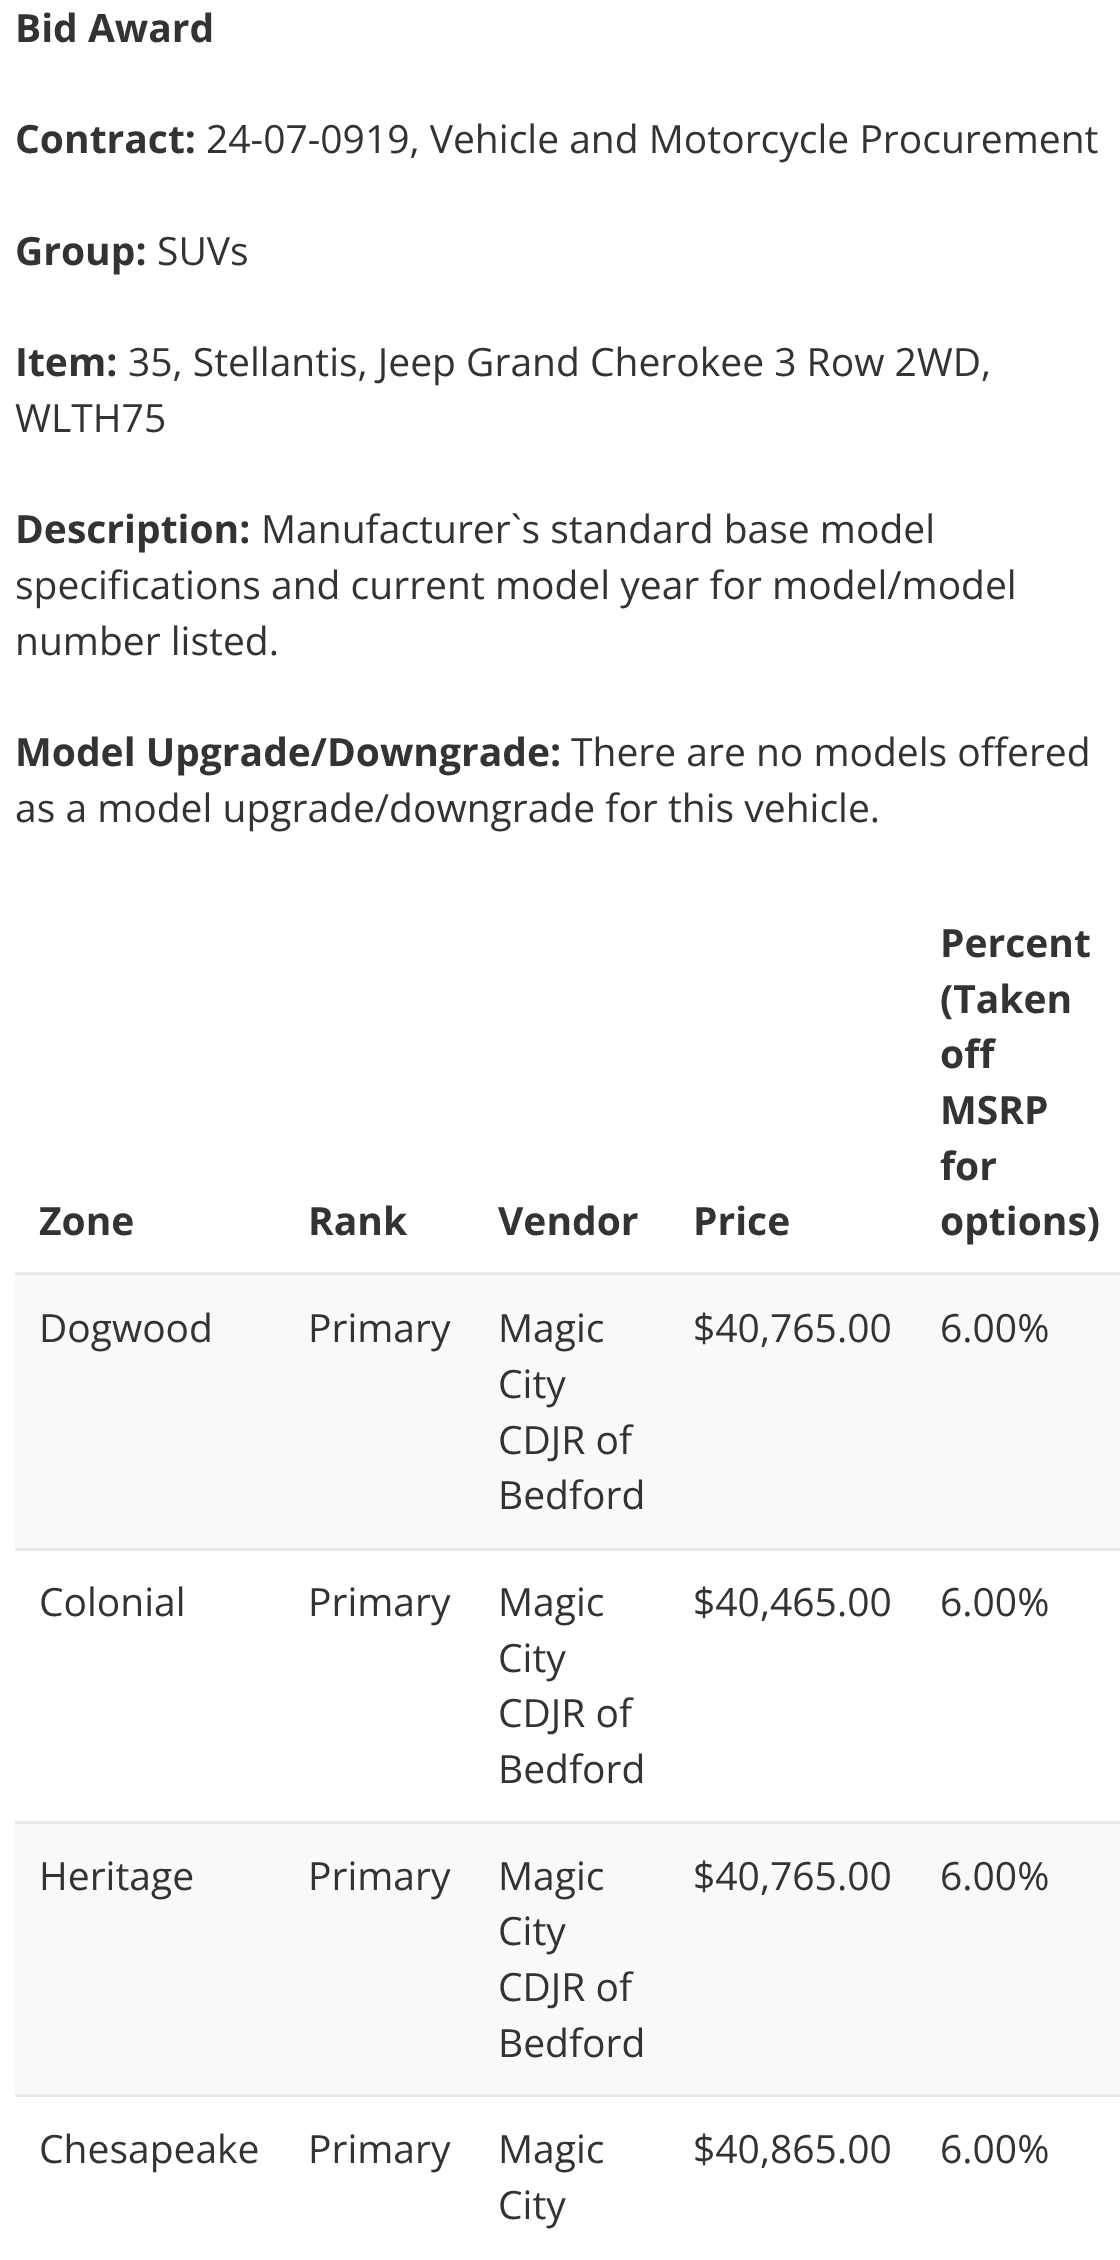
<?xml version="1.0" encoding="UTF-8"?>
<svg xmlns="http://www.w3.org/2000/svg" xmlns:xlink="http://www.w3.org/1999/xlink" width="1120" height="2260">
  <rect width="100%" height="100%" fill="#ffffff" />
  <rect x="15" y="1275" width="1105" height="273" fill="#f9f9f9" />
  <rect x="15" y="1272" width="1105" height="3" fill="#e7eaec" />
  <rect x="15" y="1548" width="1105" height="3" fill="#e7eaec" />
  <rect x="15" y="1824" width="1105" height="270" fill="#f9f9f9" />
  <rect x="15" y="1821" width="1105" height="3" fill="#e7eaec" />
  <rect x="15" y="2094" width="1105" height="3" fill="#e7eaec" />
  <text x="15" y="42" style="font-family: Open Sans; font-size: 39px; font-weight: bold; fill: #333333">Bid Award</text>
  <text x="15" y="153" style="font-family: Open Sans; font-size: 39px; font-weight: bold; fill: #333333">Contract:</text>
  <text x="206" y="153" style="font-family: Open Sans; font-size: 39px; fill: #333333">24-07-0919, Vehicle and Motorcycle Procurement</text>
  <text x="15" y="265" style="font-family: Open Sans; font-size: 39px; font-weight: bold; fill: #333333">Group:</text>
  <text x="157" y="265" style="font-family: Open Sans; font-size: 39px; fill: #333333">SUVs</text>
  <text x="15" y="376" style="font-family: Open Sans; font-size: 39px; font-weight: bold; fill: #333333">Item:</text>
  <text x="128" y="376" style="font-family: Open Sans; font-size: 39px; fill: #333333">35, Stellantis, Jeep Grand Cherokee 3 Row 2WD,</text>
  <text x="15" y="432" style="font-family: Open Sans; font-size: 39px; fill: #333333">WLTH75</text>
  <text x="15" y="543" style="font-family: Open Sans; font-size: 39px; font-weight: bold; fill: #333333">Description:</text>
  <text x="261" y="543" style="font-family: Open Sans; font-size: 39px; fill: #333333">Manufacturer`s standard base model</text>
  <text x="15" y="599" style="font-family: Open Sans; font-size: 39px; fill: #333333">specifications and current model year for model/model</text>
  <text x="15" y="655" style="font-family: Open Sans; font-size: 39px; fill: #333333">number listed.</text>
  <text x="15" y="766" style="font-family: Open Sans; font-size: 39px; font-weight: bold; fill: #333333">Model Upgrade/Downgrade:</text>
  <text x="571" y="766" style="font-family: Open Sans; font-size: 39px; fill: #333333">There are no models offered</text>
  <text x="15" y="822" style="font-family: Open Sans; font-size: 39px; fill: #333333">as a model upgrade/downgrade for this vehicle.</text>
  <text x="39" y="1235" style="font-family: Open Sans; font-size: 39px; font-weight: bold; fill: #333333">Zone</text>
  <text x="308" y="1235" style="font-family: Open Sans; font-size: 39px; font-weight: bold; fill: #333333">Rank</text>
  <text x="498" y="1235" style="font-family: Open Sans; font-size: 39px; font-weight: bold; fill: #333333">Vendor</text>
  <text x="693" y="1235" style="font-family: Open Sans; font-size: 39px; font-weight: bold; fill: #333333">Price</text>
  <text x="940" y="957" style="font-family: Open Sans; font-size: 39px; font-weight: bold; fill: #333333">Percent</text>
  <text x="940" y="1013" style="font-family: Open Sans; font-size: 39px; font-weight: bold; fill: #333333">(Taken</text>
  <text x="940" y="1068" style="font-family: Open Sans; font-size: 39px; font-weight: bold; fill: #333333">off</text>
  <text x="940" y="1124" style="font-family: Open Sans; font-size: 39px; font-weight: bold; fill: #333333">MSRP</text>
  <text x="940" y="1180" style="font-family: Open Sans; font-size: 39px; font-weight: bold; fill: #333333">for</text>
  <text x="940" y="1235" style="font-family: Open Sans; font-size: 39px; font-weight: bold; fill: #333333">options)</text>
  <text x="39" y="1342" style="font-family: Open Sans; font-size: 39px; fill: #333333">Dogwood</text>
  <text x="308" y="1342" style="font-family: Open Sans; font-size: 39px; fill: #333333">Primary</text>
  <text x="498" y="1342" style="font-family: Open Sans; font-size: 39px; fill: #333333">Magic</text>
  <text x="498" y="1398" style="font-family: Open Sans; font-size: 39px; fill: #333333">City</text>
  <text x="498" y="1454" style="font-family: Open Sans; font-size: 39px; fill: #333333">CDJR of</text>
  <text x="498" y="1509" style="font-family: Open Sans; font-size: 39px; fill: #333333">Bedford</text>
  <text x="693" y="1342" style="font-family: Open Sans; font-size: 39px; fill: #333333">$40,765.00</text>
  <text x="940" y="1342" style="font-family: Open Sans; font-size: 39px; fill: #333333">6.00%</text>
  <text x="39" y="1616" style="font-family: Open Sans; font-size: 39px; fill: #333333">Colonial</text>
  <text x="308" y="1616" style="font-family: Open Sans; font-size: 39px; fill: #333333">Primary</text>
  <text x="498" y="1616" style="font-family: Open Sans; font-size: 39px; fill: #333333">Magic</text>
  <text x="498" y="1672" style="font-family: Open Sans; font-size: 39px; fill: #333333">City</text>
  <text x="498" y="1727" style="font-family: Open Sans; font-size: 39px; fill: #333333">CDJR of</text>
  <text x="498" y="1783" style="font-family: Open Sans; font-size: 39px; fill: #333333">Bedford</text>
  <text x="693" y="1616" style="font-family: Open Sans; font-size: 39px; fill: #333333">$40,465.00</text>
  <text x="940" y="1616" style="font-family: Open Sans; font-size: 39px; fill: #333333">6.00%</text>
  <text x="39" y="1890" style="font-family: Open Sans; font-size: 39px; fill: #333333">Heritage</text>
  <text x="308" y="1890" style="font-family: Open Sans; font-size: 39px; fill: #333333">Primary</text>
  <text x="498" y="1890" style="font-family: Open Sans; font-size: 39px; fill: #333333">Magic</text>
  <text x="498" y="1945" style="font-family: Open Sans; font-size: 39px; fill: #333333">City</text>
  <text x="498" y="2001" style="font-family: Open Sans; font-size: 39px; fill: #333333">CDJR of</text>
  <text x="498" y="2057" style="font-family: Open Sans; font-size: 39px; fill: #333333">Bedford</text>
  <text x="693" y="1890" style="font-family: Open Sans; font-size: 39px; fill: #333333">$40,765.00</text>
  <text x="940" y="1890" style="font-family: Open Sans; font-size: 39px; fill: #333333">6.00%</text>
  <text x="39" y="2163" style="font-family: Open Sans; font-size: 39px; fill: #333333">Chesapeake</text>
  <text x="308" y="2163" style="font-family: Open Sans; font-size: 39px; fill: #333333">Primary</text>
  <text x="498" y="2163" style="font-family: Open Sans; font-size: 39px; fill: #333333">Magic</text>
  <text x="498" y="2219" style="font-family: Open Sans; font-size: 39px; fill: #333333">City</text>
  <text x="693" y="2163" style="font-family: Open Sans; font-size: 39px; fill: #333333">$40,865.00</text>
  <text x="940" y="2163" style="font-family: Open Sans; font-size: 39px; fill: #333333">6.00%</text>
</svg>
